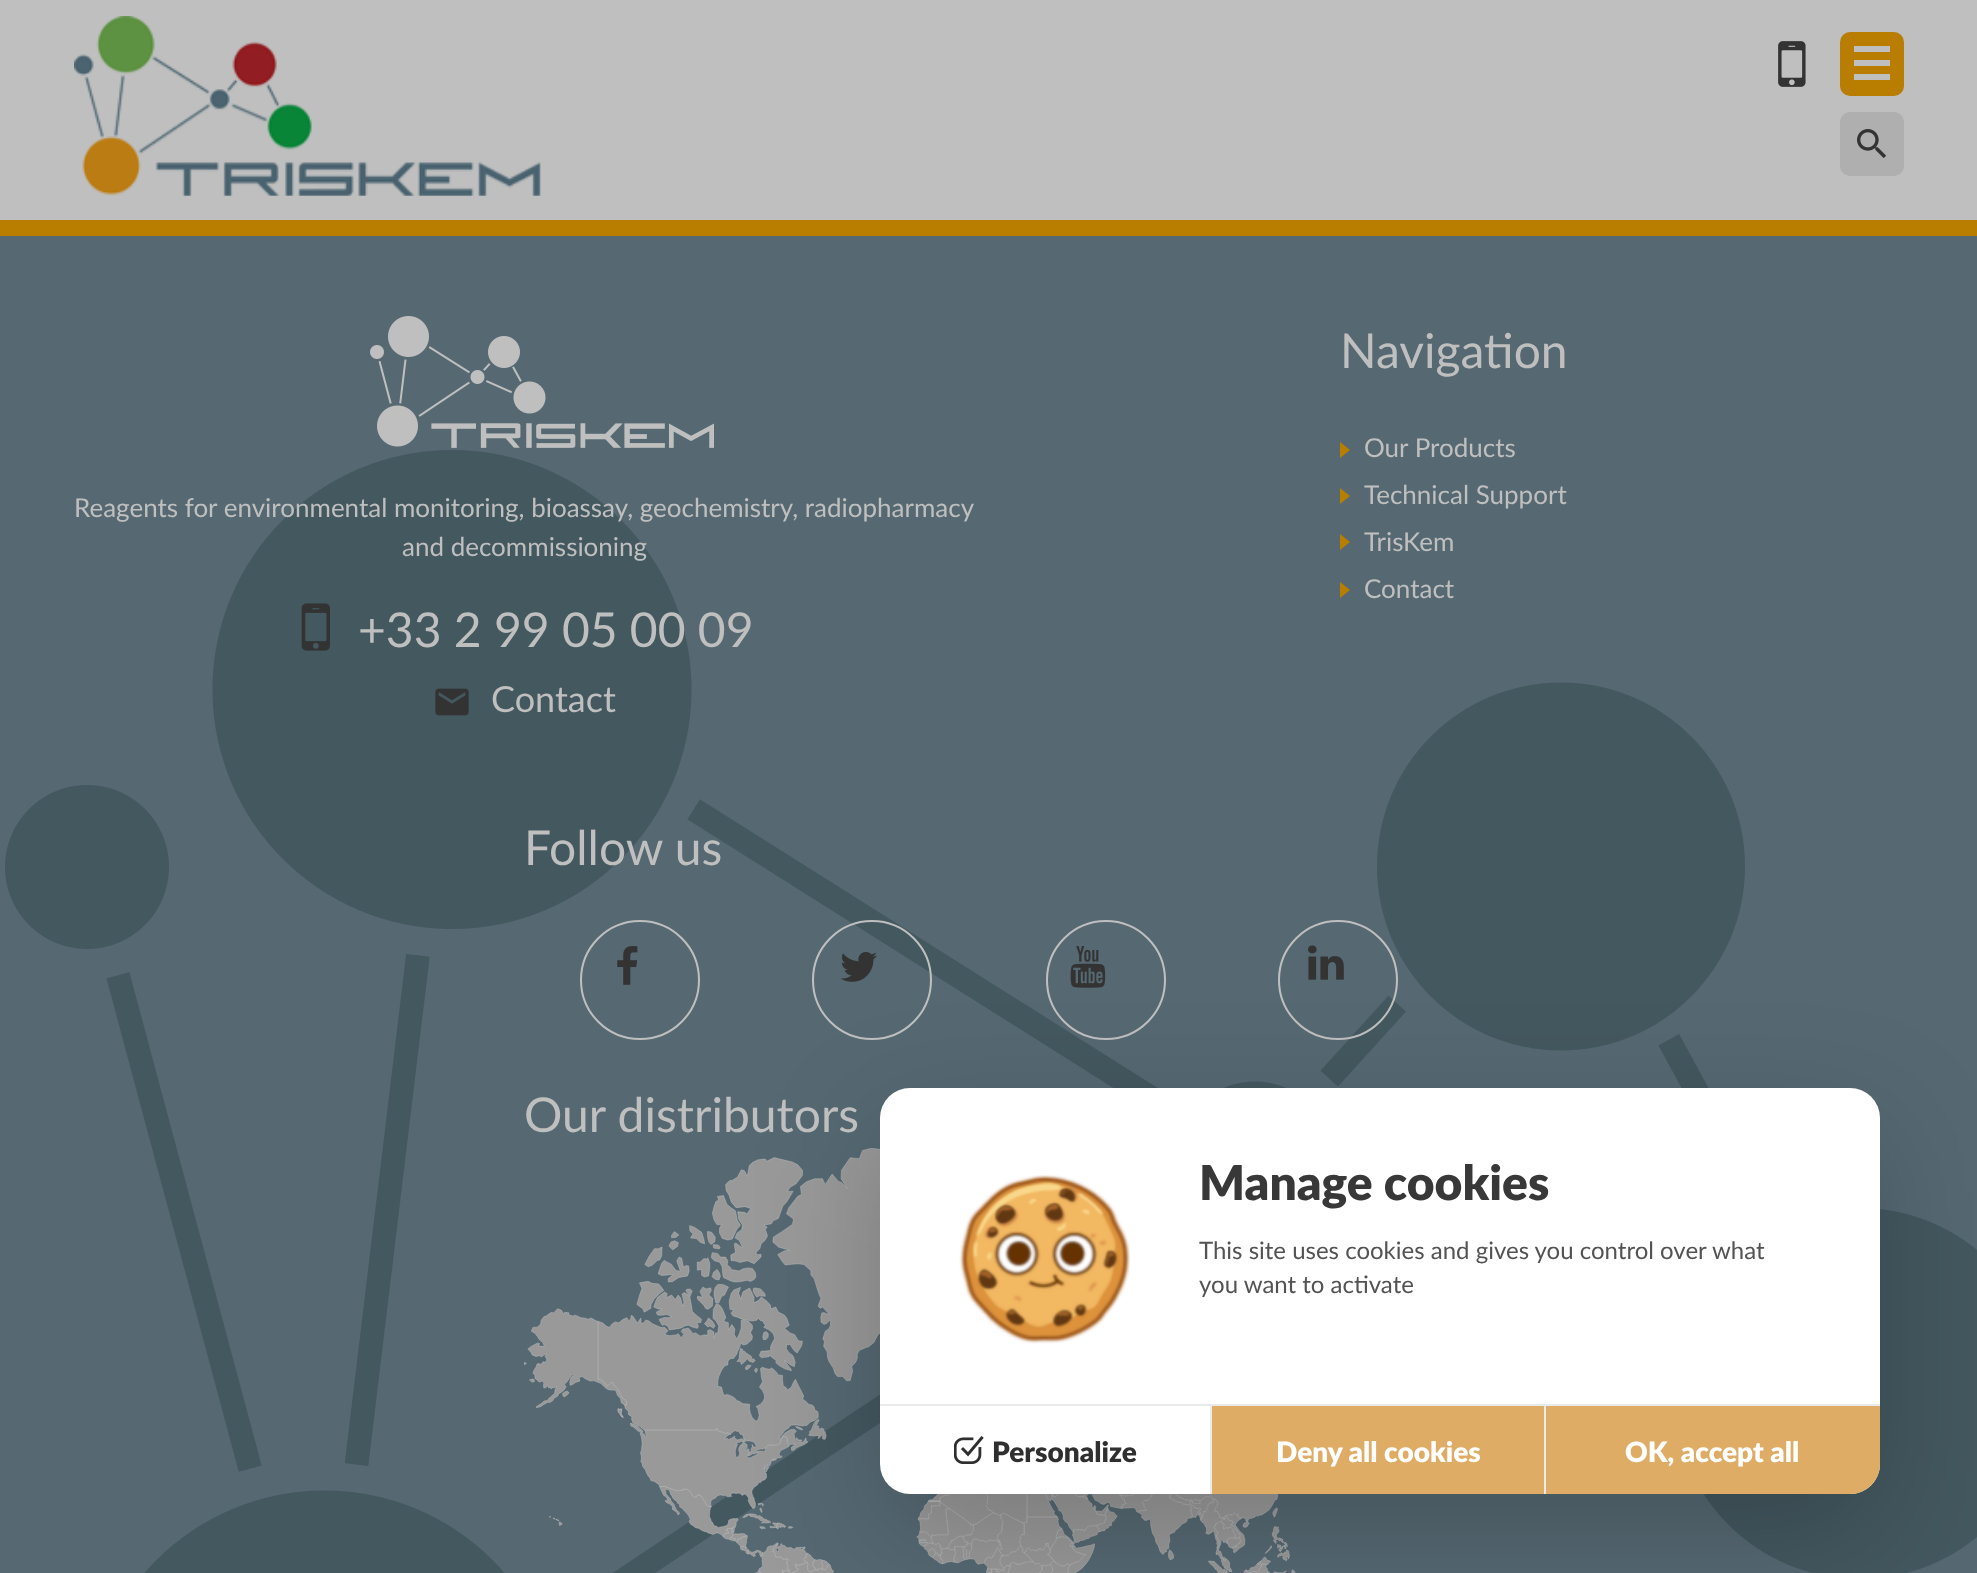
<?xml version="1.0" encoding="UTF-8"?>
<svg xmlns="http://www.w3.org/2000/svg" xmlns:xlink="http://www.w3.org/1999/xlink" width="1977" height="1573">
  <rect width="100%" height="100%" fill="#b97e00" />
  <rect width="1977" height="220" fill="#bfbfbf" />
  <image x="74" y="16" width="467" height="180" xlink:href="image1.png" />
  <image x="1778" y="41" width="28" height="46" xlink:href="image2.png" />
  <rect x="1840" y="32" width="64" height="64" rx="10" fill="#b97e00" />
  <rect x="1854" y="46" width="36" height="6" fill="#bfbfbf" />
  <rect x="1854" y="60" width="36" height="6" fill="#bfbfbf" />
  <rect x="1854" y="74" width="36" height="6" fill="#bfbfbf" />
  <rect x="1840" y="112" width="64" height="64" rx="10" fill="#afafaf" />
  <image x="1857" y="129" width="29" height="29" xlink:href="image3.png" />
  <rect y="236" width="1977" height="1337" fill="#566973" />
  <image x="5" y="450" width="1972" height="1123" xlink:href="image4.png" />
  <image x="370" y="316" width="344" height="132" xlink:href="image5.png" />
  <image x="301" y="603" width="29" height="48" xlink:href="image6.png" />
  <image x="435" y="688" width="34" height="28" xlink:href="image7.png" />
  <path d="M 1340 458 v -16 l 10 8 z" fill="#b97e00" />
  <path d="M 1340 504 v -16 l 10 8 z" fill="#b97e00" />
  <path d="M 1340 550 v -16 l 10 8 z" fill="#b97e00" />
  <path d="M 1340 598 v -16 l 10 8 z" fill="#b97e00" />
  <circle cx="640" cy="980" r="59" fill="none" stroke="#bfbfbf" stroke-width="2" />
  <image x="617" y="946" width="21" height="39" xlink:href="image8.png" />
  <circle cx="872" cy="980" r="59" fill="none" stroke="#bfbfbf" stroke-width="2" />
  <image x="840" y="952" width="37" height="30" xlink:href="image9.png" />
  <circle cx="1106" cy="980" r="59" fill="none" stroke="#bfbfbf" stroke-width="2" />
  <image x="1070" y="946" width="36" height="42" xlink:href="image10.png" />
  <circle cx="1338" cy="980" r="59" fill="none" stroke="#bfbfbf" stroke-width="2" />
  <image x="1308" y="945" width="36" height="35" xlink:href="image11.png" />
  <image x="524" y="1148" width="772" height="425" xlink:href="image12.png" />
  <rect x="880" y="1128" width="1000" height="406" rx="30" fill="#000000" fill-opacity="0.2" filter="blur(60px)" />
  <rect x="880" y="1088" width="1000" height="406" rx="30" fill="#ffffff" />
  <image x="959" y="1175" width="171" height="169" xlink:href="image13.png" />
  <path d="M 1546 1404 h 334 v 60 c 0 16.5 -13.5 30 -30 30 h -304 z" fill="#deac64" />
  <rect x="880" y="1404" width="1000" height="2" fill="#eaeaea" />
  <rect x="1210" y="1404" width="2" height="90" fill="#eaeaea" />
  <image x="954" y="1436" width="30" height="28" xlink:href="image14.png" />
  <rect x="1212" y="1406" width="332" height="88" fill="#deac64" />
  <rect x="1544" y="1404" width="2" height="90" fill="#eaeaea" />
  <text x="74" y="517" style="font-family: Lato; font-size: 26px; fill: #bfbfbf">Reagents for environmental monitoring, bioassay, geochemistry, radiopharmacy</text>
  <text x="402" y="556" style="font-family: Lato; font-size: 26px; fill: #bfbfbf">and decommissioning</text>
  <text x="358" y="647" style="font-family: Lato; font-size: 48px; fill: #bfbfbf">+33 2 99 05 00 09</text>
  <text x="491" y="712" style="font-family: Lato; font-size: 36px; fill: #bfbfbf">Contact</text>
  <text x="1340" y="368" style="font-family: Lato; font-size: 48px; fill: #bfbfbf">Navigation</text>
  <text x="1364" y="457" style="font-family: Lato; font-size: 26px; fill: #bfbfbf">Our Products</text>
  <text x="1364" y="504" style="font-family: Lato; font-size: 26px; fill: #bfbfbf">Technical Support</text>
  <text x="1364" y="551" style="font-family: Lato; font-size: 26px; fill: #bfbfbf">TrisKem</text>
  <text x="1364" y="598" style="font-family: Lato; font-size: 26px; fill: #bfbfbf">Contact</text>
  <text x="524" y="865" style="font-family: Lato; font-size: 48px; fill: #bfbfbf">Follow us</text>
  <text x="524" y="1132" style="font-family: Lato; font-size: 48px; fill: #bfbfbf">Our distributors</text>
  <text x="1199" y="1200" style="font-family: Lato; font-size: 48px; font-weight: 900; fill: #383838">Manage cookies</text>
  <text x="1199" y="1259" style="font-family: Lato; font-size: 24px; fill: #535353">This site uses cookies and gives you control over what</text>
  <text x="1199" y="1293" style="font-family: Lato; font-size: 24px; fill: #535353">you want to activate</text>
  <text x="992" y="1462" style="font-family: Lato; font-size: 28px; font-weight: 900; fill: #2f2f2f">Personalize</text>
  <text x="1276" y="1462" style="font-family: Lato; font-size: 28px; font-weight: 900; fill: #ffffff">Deny all cookies</text>
  <text x="1625" y="1462" style="font-family: Lato; font-size: 28px; font-weight: 900; fill: #ffffff">OK, accept all</text>
</svg>
